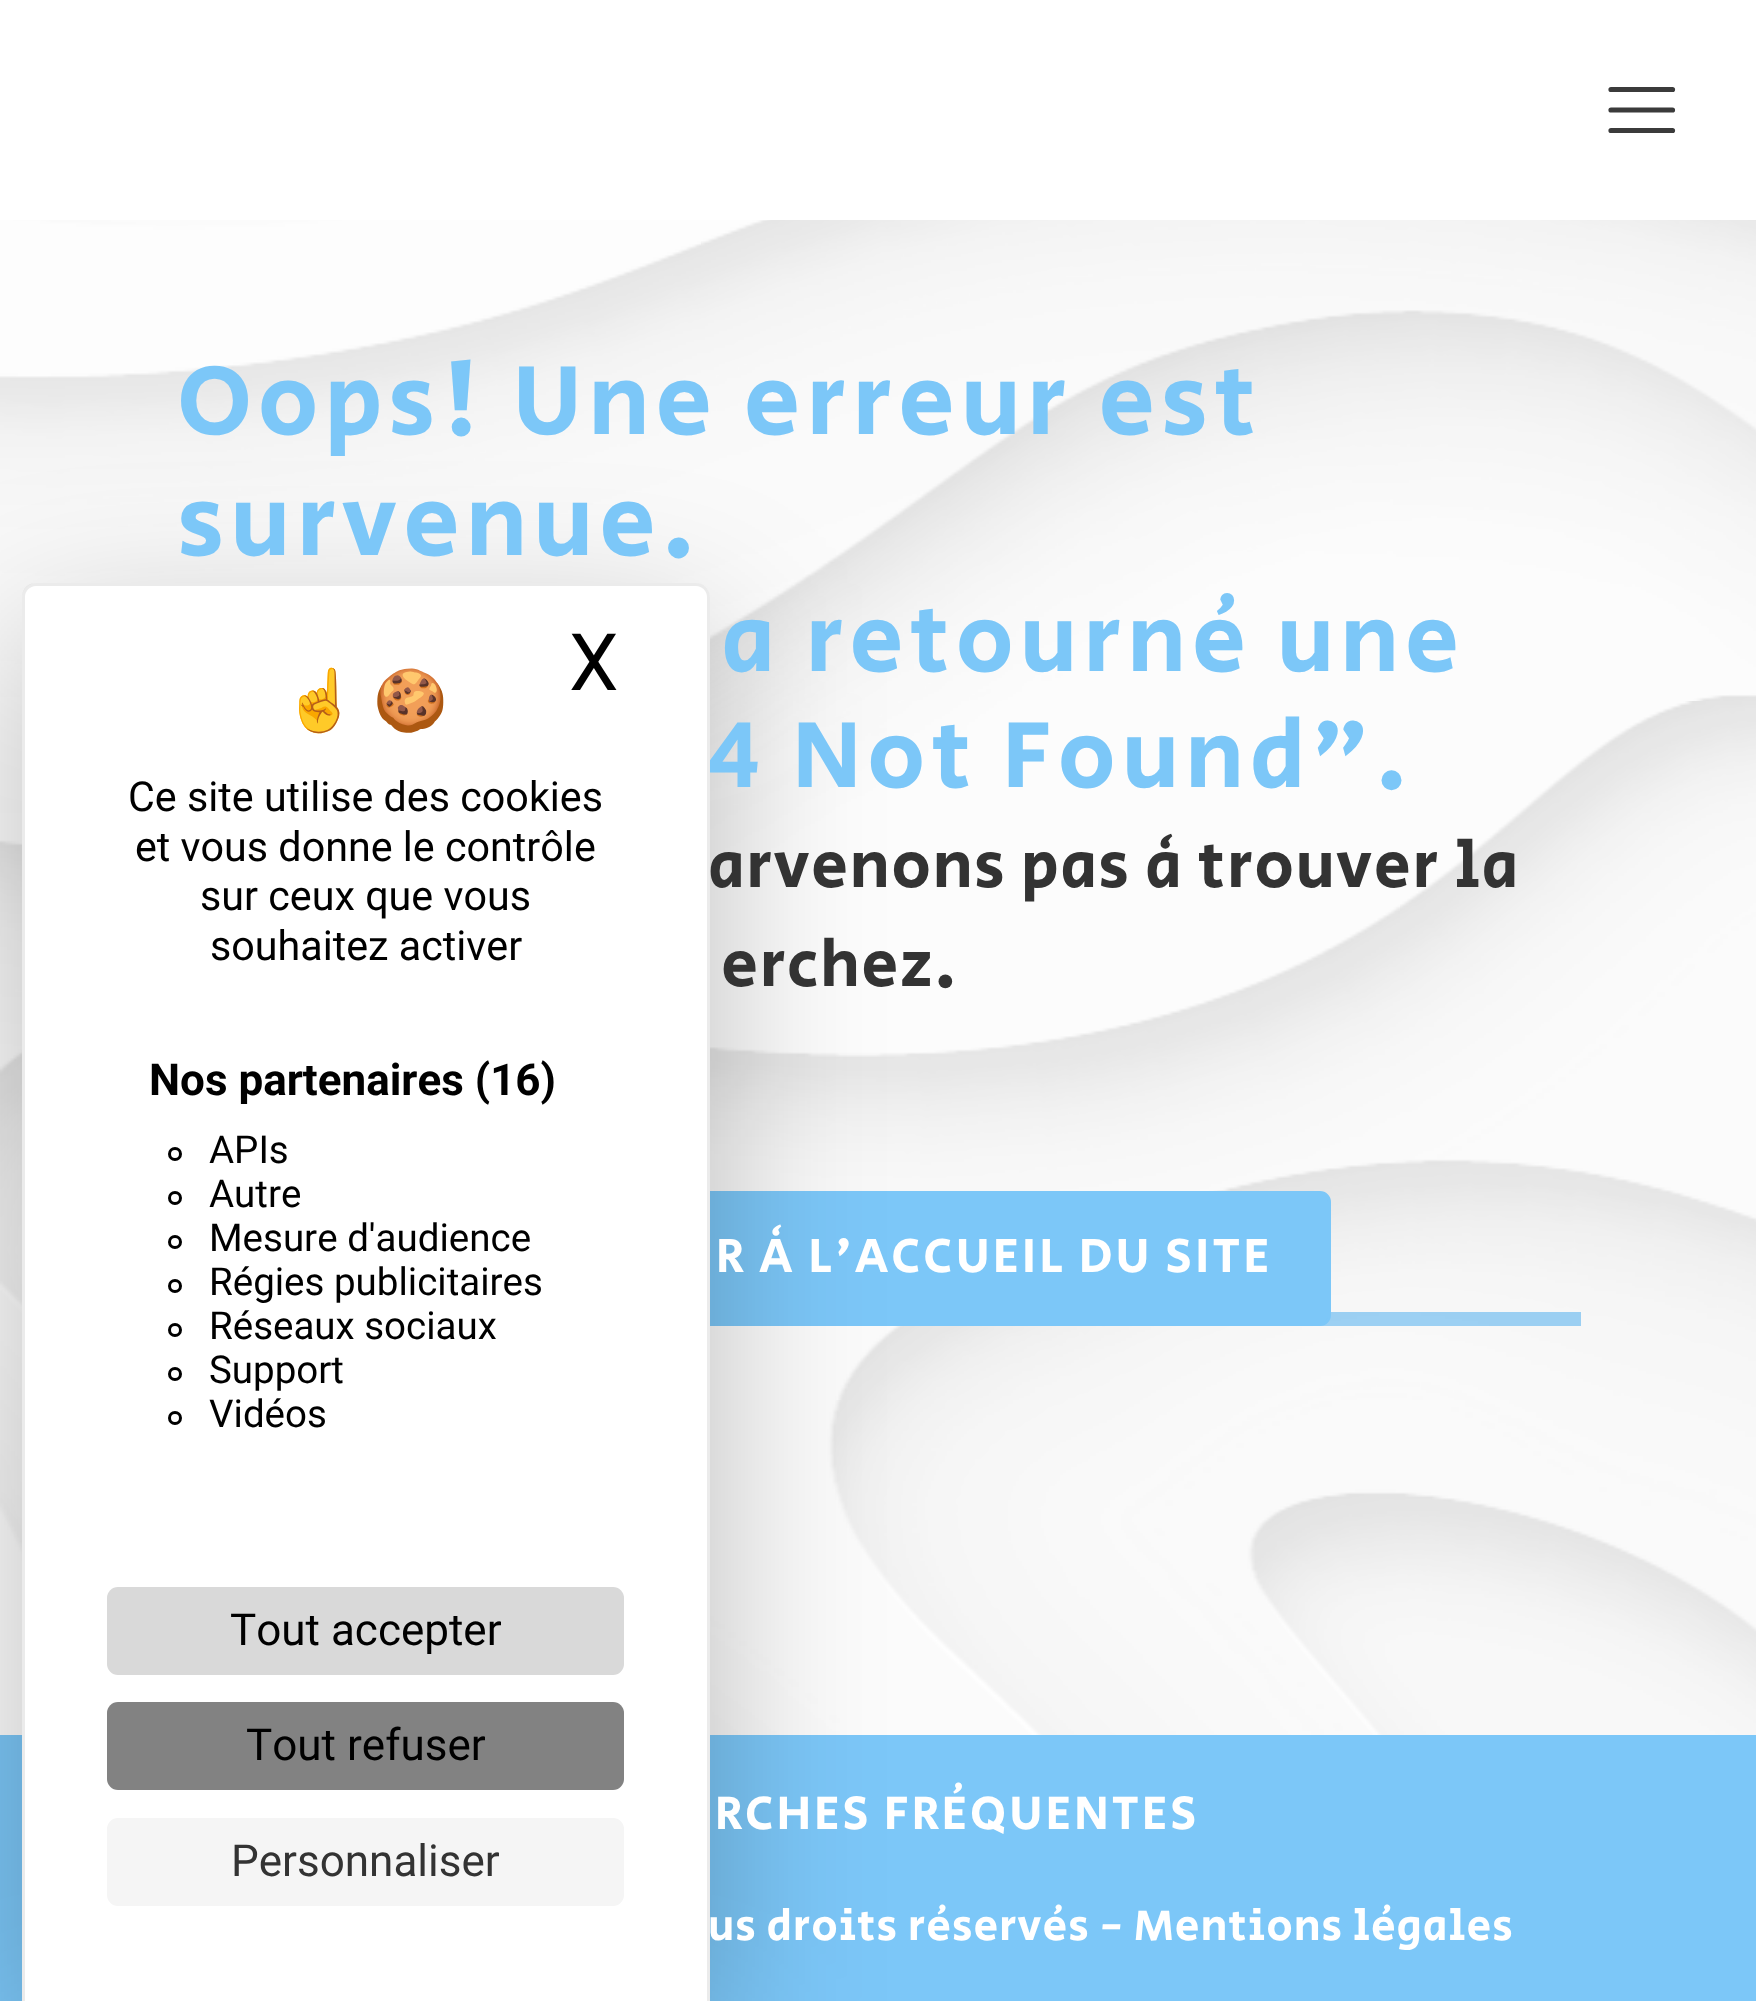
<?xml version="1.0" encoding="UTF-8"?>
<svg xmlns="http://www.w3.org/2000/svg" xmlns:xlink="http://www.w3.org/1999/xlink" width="1756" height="2001">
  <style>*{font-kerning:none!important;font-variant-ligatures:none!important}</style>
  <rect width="100%" height="100%" fill="#ffffff" />
  <rect x="1320" y="1312" width="261" height="14" fill="#7cc7f8" />
  <image x="0" y="220" width="1756" height="1515" xlink:href="image1.png" />
  <path d="M 1611 89.5 h 61.5 m -61.5 20.5 h 61.5 m -61.5 20.5 h 61.5" fill="none" stroke="#3b3b3b" stroke-width="5.2" stroke-linecap="round" />
  <rect x="427.5" y="1192.5" width="902" height="132" rx="9.5" fill="#7cc7f8" stroke="#7cc7f8" stroke-width="3" />
  <rect y="1735" width="1756" height="266" fill="#7cc7f8" />
  <rect x="22" y="638" width="688" height="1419" rx="14" fill="#000000" fill-opacity="0.25" filter="blur(82.5px)" />
  <text x="177" y="434" style="font-family: Secular One; font-size: 101.25px; letter-spacing: 5.5px; fill: #7cc7f8">Oops! Une erreur est</text>
  <text x="177" y="555" style="font-family: Secular One; font-size: 101.25px; letter-spacing: 5.5px; fill: #7cc7f8">survenue.</text>
  <text x="721" y="671" style="font-family: Secular One; font-size: 96.75px; letter-spacing: 5.5px; fill: #7cc7f8">a retourné une</text>
  <text x="706" y="787" style="font-family: Secular One; font-size: 96.75px; letter-spacing: 5.5px; fill: #7cc7f8">4 Not Found".</text>
  <text x="708" y="887" style="font-family: Secular One; font-size: 66px; letter-spacing: 1.3px; fill: #333333">arvenons pas à trouver la</text>
  <text x="721" y="986" style="font-family: Secular One; font-size: 66px; letter-spacing: 1.3px; fill: #333333">erchez.</text>
  <text x="716" y="1272" style="font-family: Secular One; font-size: 49.5px; letter-spacing: 2.75px; fill: #ffffff">R À L'ACCUEIL DU SITE</text>
  <text x="715" y="1829" style="font-family: Secular One; font-size: 48.5px; letter-spacing: 2.75px; fill: #ffffff">RCHES FRÉQUENTES</text>
  <text x="708" y="1940" style="font-family: Secular One; font-size: 44px; letter-spacing: 0.9px; fill: #ffffff">us droits réservés - Mentions légales</text>
  <path d="M 36 583 h 660 c 7.5 0 14 6.5 14 14 v 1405 h -688 v -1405 c 0 -7.5 6.5 -14 14 -14 z" fill="#ffffff" />
  <path d="M 36 583 h 660 c 7 0 14 6 14 14 v 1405 h -688 v -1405 c 0 -8 6 -14 14 -14 z m 0 3 h 660 c 6 0 11 5 11 11 v 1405 h -682 v -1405 c 0 -6 5 -11 11 -11 z" fill="#000000" fill-opacity="0.08" fill-rule="evenodd" />
  <text x="283" y="721" style="font-family: Noto Color Emoji; font-size: 60px; fill: #000000">☝️</text>
  <text x="373" y="721" style="font-family: Noto Color Emoji; font-size: 60px; fill: #000000">🍪</text>
  <text x="569" y="690" style="font-family: Roboto; font-size: 79px; fill: #000000">X</text>
  <text x="128" y="811" style="font-family: Roboto; font-size: 41.25px; fill: #000000">Ce site utilise des cookies</text>
  <text x="135" y="861" style="font-family: Roboto; font-size: 41.25px; fill: #000000">et vous donne le contrôle</text>
  <text x="200" y="910" style="font-family: Roboto; font-size: 41.25px; fill: #000000">sur ceux que vous</text>
  <text x="210" y="960" style="font-family: Roboto; font-size: 41.25px; fill: #000000">souhaitez activer</text>
  <text x="149" y="1095" style="font-family: Roboto; font-size: 44px; font-weight: bold; fill: #000000">Nos partenaires (16)</text>
  <circle cx="175" cy="1154" r="5.5" fill="none" stroke="#000000" stroke-width="3" />
  <text x="209" y="1163" style="font-family: Roboto; font-size: 38.5px; fill: #000000">APIs</text>
  <circle cx="175" cy="1198" r="5.5" fill="none" stroke="#000000" stroke-width="3" />
  <text x="209" y="1207" style="font-family: Roboto; font-size: 38.5px; fill: #000000">Autre</text>
  <circle cx="175" cy="1242" r="5.5" fill="none" stroke="#000000" stroke-width="3" />
  <text x="209" y="1251" style="font-family: Roboto; font-size: 38.5px; fill: #000000">Mesure d'audience</text>
  <circle cx="175" cy="1286" r="5.5" fill="none" stroke="#000000" stroke-width="3" />
  <text x="209" y="1295" style="font-family: Roboto; font-size: 38.5px; fill: #000000">Régies publicitaires</text>
  <circle cx="175" cy="1330" r="5.5" fill="none" stroke="#000000" stroke-width="3" />
  <text x="209" y="1339" style="font-family: Roboto; font-size: 38.5px; fill: #000000">Réseaux sociaux</text>
  <circle cx="175" cy="1374" r="5.5" fill="none" stroke="#000000" stroke-width="3" />
  <text x="209" y="1383" style="font-family: Roboto; font-size: 38.5px; fill: #000000">Support</text>
  <circle cx="175" cy="1418" r="5.5" fill="none" stroke="#000000" stroke-width="3" />
  <text x="209" y="1427" style="font-family: Roboto; font-size: 38.5px; fill: #000000">Vidéos</text>
  <rect x="107" y="1587" width="517" height="88" rx="11" fill="#d9d9d9" />
  <text x="230" y="1645" style="font-family: Roboto; font-size: 44px; fill: #000000">Tout accepter</text>
  <rect x="107" y="1702" width="517" height="88" rx="11" fill="#828282" />
  <text x="246" y="1760" style="font-family: Roboto; font-size: 44px; fill: #000000">Tout refuser</text>
  <rect x="107" y="1818" width="517" height="88" rx="11" fill="#f5f5f5" />
  <text x="231" y="1876" style="font-family: Roboto; font-size: 44px; fill: #333333">Personnaliser</text>
</svg>
